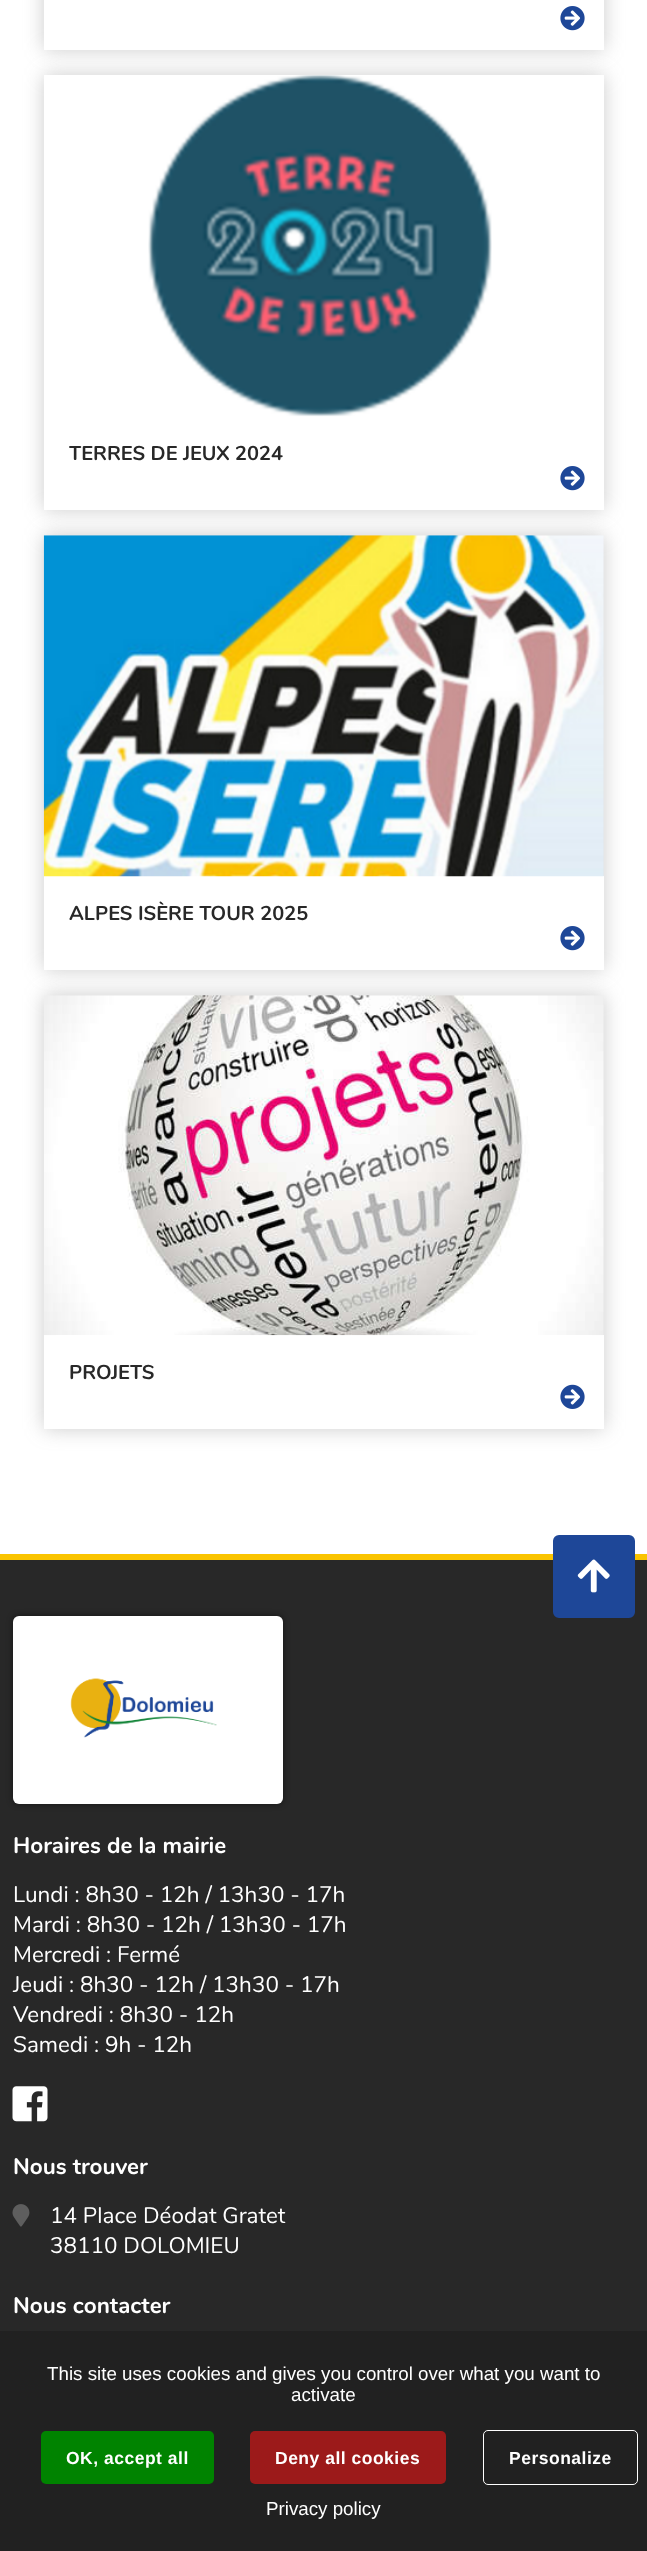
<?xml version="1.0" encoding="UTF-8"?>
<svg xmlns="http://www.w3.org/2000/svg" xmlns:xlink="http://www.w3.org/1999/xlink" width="647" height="2551">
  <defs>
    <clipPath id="clip1"><path d="M 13 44 h 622 v 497 h -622 z m 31 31 h 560 v 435 h -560 z" clip-rule="evenodd" /></clipPath>
  </defs>
  <rect width="100%" height="100%" fill="#ffffff" />
  <rect x="44" y="-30" width="560" height="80" fill="#737373" fill-opacity="0.36" filter="blur(10px)" />
  <rect x="44" width="560" height="50" fill="#ffffff" />
  <image x="560" y="6" width="25" height="25" xlink:href="image1.png" />
  <g clip-path="url(#clip1)">
    <rect x="44" y="75" width="560" height="435" fill="#737373" fill-opacity="0.36" filter="blur(10px)" />
  </g>
  <image x="148" y="75" width="344" height="342" xlink:href="image2.png" />
  <rect x="603" y="416" width="1" height="94" fill="#ffffff" />
  <image x="560" y="466" width="25" height="25" xlink:href="image1.png" />
  <rect x="44" y="535" width="560" height="435" fill="#737373" fill-opacity="0.36" filter="blur(10px)" />
  <rect x="44" y="876" width="560" height="94" fill="#ffffff" />
  <image x="43" y="535" width="561" height="342" xlink:href="image3.png" />
  <image x="560" y="926" width="25" height="25" xlink:href="image1.png" />
  <rect x="44" y="995" width="560" height="434" fill="#737373" fill-opacity="0.36" filter="blur(10px)" />
  <rect x="44" y="1335" width="560" height="94" fill="#ffffff" />
  <image x="44" y="995" width="560" height="341" xlink:href="image4.png" />
  <image x="560" y="1384" width="25" height="25" xlink:href="image5.png" />
  <rect y="1560" width="647" height="771" fill="#282828" />
  <rect y="1554" width="647" height="6" fill="#fac400" />
  <rect x="555" y="1537" width="78" height="79" rx="4" fill="#1e4798" stroke="#1e4798" stroke-width="4" />
  <image x="577" y="1559" width="33" height="34" xlink:href="image6.png" />
  <rect x="13" y="1616" width="270" height="188" rx="6" fill="#000000" fill-opacity="0.5" filter="blur(3px)" />
  <rect x="13" y="1616" width="270" height="188" rx="6" fill="#ffffff" />
  <image x="70" y="1678" width="147" height="60" xlink:href="image7.png" />
  <image x="12" y="2086" width="36" height="36" xlink:href="image8.png" />
  <image x="12" y="2204" width="18" height="23" xlink:href="image9.png" />
  <rect y="2331" width="647" height="220" fill="#212121" />
  <rect x="41" y="2431" width="173" height="53" rx="5" fill="#008300" />
  <rect x="250" y="2431" width="196" height="53" rx="5" fill="#9c1a1a" />
  <rect x="483.5" y="2430.5" width="154" height="54" rx="4.5" fill="none" stroke="#ffffff" />
  <text x="69" y="460" style="font-family: Nunito; font-size: 20px; font-weight: bold; fill: #282828">TERRES DE JEUX 2024</text>
  <text x="69" y="920" style="font-family: Nunito; font-size: 20px; font-weight: bold; fill: #282828">ALPES ISÈRE TOUR 2025</text>
  <text x="69" y="1379" style="font-family: Nunito; font-size: 20px; font-weight: bold; fill: #282828">PROJETS</text>
  <text x="13" y="1853" style="font-family: Nunito; font-size: 22.5px; font-weight: bold; fill: #ffffff">Horaires de la mairie</text>
  <text x="13" y="1902" style="font-family: Nunito; font-size: 22.5px; fill: #ffffff">Lundi : 8h30 - 12h / 13h30 - 17h</text>
  <text x="13" y="1932" style="font-family: Nunito; font-size: 22.5px; fill: #ffffff">Mardi : 8h30 - 12h / 13h30 - 17h</text>
  <text x="13" y="1962" style="font-family: Nunito; font-size: 22.5px; fill: #ffffff">Mercredi : Fermé</text>
  <text x="13" y="1992" style="font-family: Nunito; font-size: 22.5px; fill: #ffffff">Jeudi : 8h30 - 12h / 13h30 - 17h</text>
  <text x="13" y="2022" style="font-family: Nunito; font-size: 22.5px; fill: #ffffff">Vendredi : 8h30 - 12h</text>
  <text x="13" y="2052" style="font-family: Nunito; font-size: 22.5px; fill: #ffffff">Samedi : 9h - 12h</text>
  <text x="13" y="2174" style="font-family: Nunito; font-size: 22.5px; font-weight: bold; fill: #ffffff">Nous trouver</text>
  <text x="50" y="2223" style="font-family: Nunito; font-size: 22.5px; fill: #ffffff">14 Place Déodat Gratet</text>
  <text x="50" y="2253" style="font-family: Nunito; font-size: 22.5px; fill: #ffffff">38110 DOLOMIEU</text>
  <text x="13" y="2313" style="font-family: Nunito; font-size: 22.5px; font-weight: bold; fill: #ffffff">Nous contacter</text>
  <text x="47" y="2380" style="font-family: Liberation Sans; font-size: 18.75px; fill: #ffffff">This site uses cookies and gives you control over what you want to</text>
  <text x="291" y="2401" style="font-family: Liberation Sans; font-size: 18.75px; fill: #ffffff">activate</text>
  <text x="66" y="2464" style="font-family: Liberation Sans; font-size: 17.5px; font-weight: bold; letter-spacing: 0.5px; fill: #ffffff">OK, accept all</text>
  <text x="275" y="2464" style="font-family: Liberation Sans; font-size: 17.5px; font-weight: bold; letter-spacing: 0.5px; fill: #ffffff">Deny all cookies</text>
  <text x="509" y="2464" style="font-family: Liberation Sans; font-size: 17.5px; font-weight: bold; letter-spacing: 0.5px; fill: #ffffff">Personalize</text>
  <text x="266" y="2515" style="font-family: Liberation Sans; font-size: 18.75px; fill: #ffffff">Privacy policy</text>
</svg>
